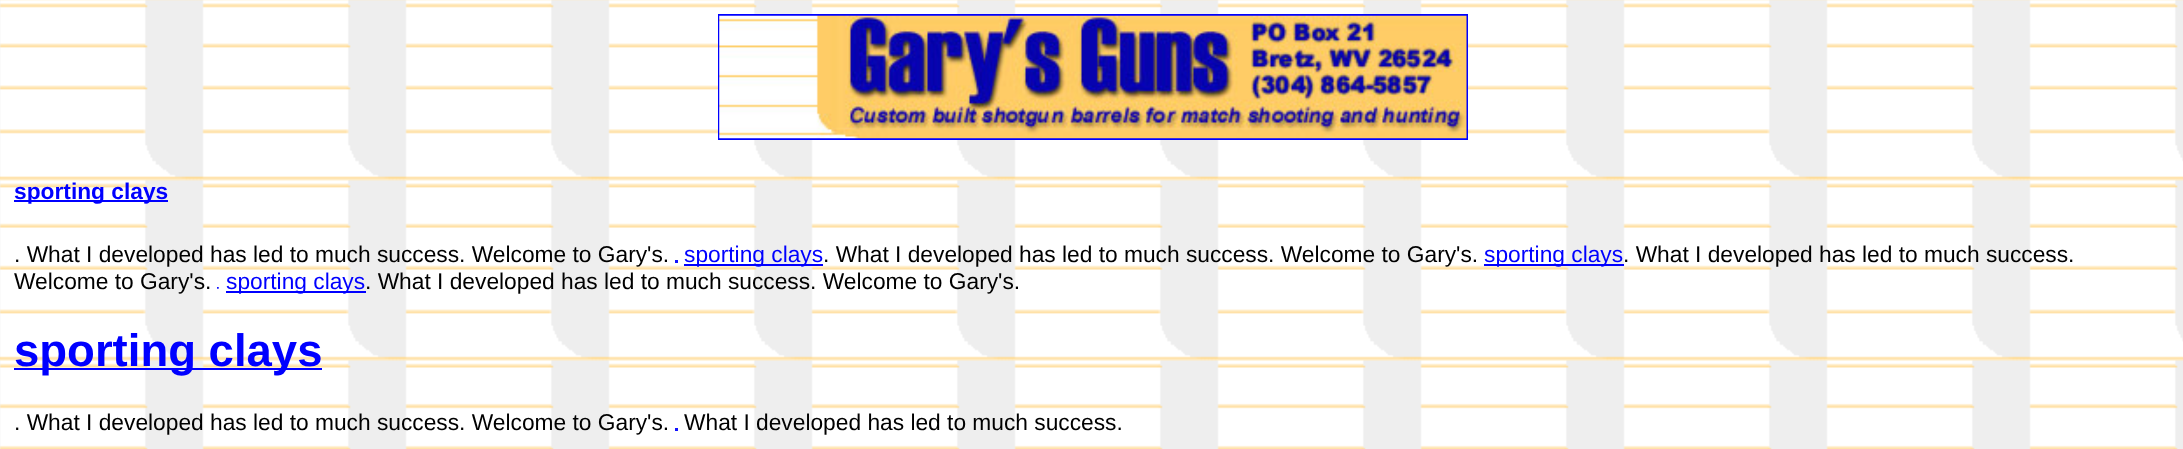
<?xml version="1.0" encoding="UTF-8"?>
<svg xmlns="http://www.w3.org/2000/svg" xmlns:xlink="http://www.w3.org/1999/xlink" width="2183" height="449">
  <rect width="100%" height="100%" fill="#eeeeee" />
  <image x="0" y="0" width="2183" height="449" xlink:href="image1.png" />
  <rect x="719" y="15" width="748" height="124" fill="none" stroke="#0000ff" stroke-width="2" />
  <image x="719" y="15" width="748" height="124" xlink:href="image2.png" />
  <rect x="14" y="200" width="154" height="2" fill="#0000ff" />
  <rect x="675" y="260" width="3" height="3" fill="#1212ff" />
  <rect x="684" y="264" width="139" height="2" fill="#0000ff" />
  <rect x="1484" y="264" width="140" height="2" fill="#0000ff" />
  <image x="217" y="287" width="2" height="2" xlink:href="image3.png" />
  <rect x="226" y="291" width="140" height="2" fill="#0000ff" />
  <rect x="14" y="368" width="308" height="2" fill="#0000ff" />
  <rect x="675" y="428" width="3" height="3" fill="#1212ff" />
  <text x="14" y="199" style="font-family: Liberation Sans; font-size: 22.75px; font-weight: bold; fill: #0000ff">sporting clays</text>
  <text x="14" y="262" style="font-family: Liberation Sans; font-size: 22.75px; fill: #000000">. What I developed has led to much success. Welcome to Gary's.</text>
  <text x="684" y="262" style="font-family: Liberation Sans; font-size: 22.75px; fill: #0000ff">sporting clays</text>
  <text x="823" y="262" style="font-family: Liberation Sans; font-size: 22.75px; fill: #000000">. What I developed has led to much success. Welcome to Gary's.</text>
  <text x="1484" y="262" style="font-family: Liberation Sans; font-size: 22.75px; fill: #0000ff">sporting clays</text>
  <text x="1623" y="262" style="font-family: Liberation Sans; font-size: 22.75px; fill: #000000">. What I developed has led to much success.</text>
  <text x="14" y="289" style="font-family: Liberation Sans; font-size: 22.75px; fill: #000000">Welcome to Gary's.</text>
  <text x="226" y="289" style="font-family: Liberation Sans; font-size: 22.75px; fill: #0000ff">sporting clays</text>
  <text x="365" y="289" style="font-family: Liberation Sans; font-size: 22.75px; fill: #000000">. What I developed has led to much success. Welcome to Gary's.</text>
  <text x="14" y="366" style="font-family: Liberation Sans; font-size: 45.5px; font-weight: bold; fill: #0000ff">sporting clays</text>
  <text x="14" y="430" style="font-family: Liberation Sans; font-size: 22.75px; fill: #000000">. What I developed has led to much success. Welcome to Gary's.</text>
  <text x="684" y="430" style="font-family: Liberation Sans; font-size: 22.75px; fill: #000000">What I developed has led to much success.</text>
</svg>
